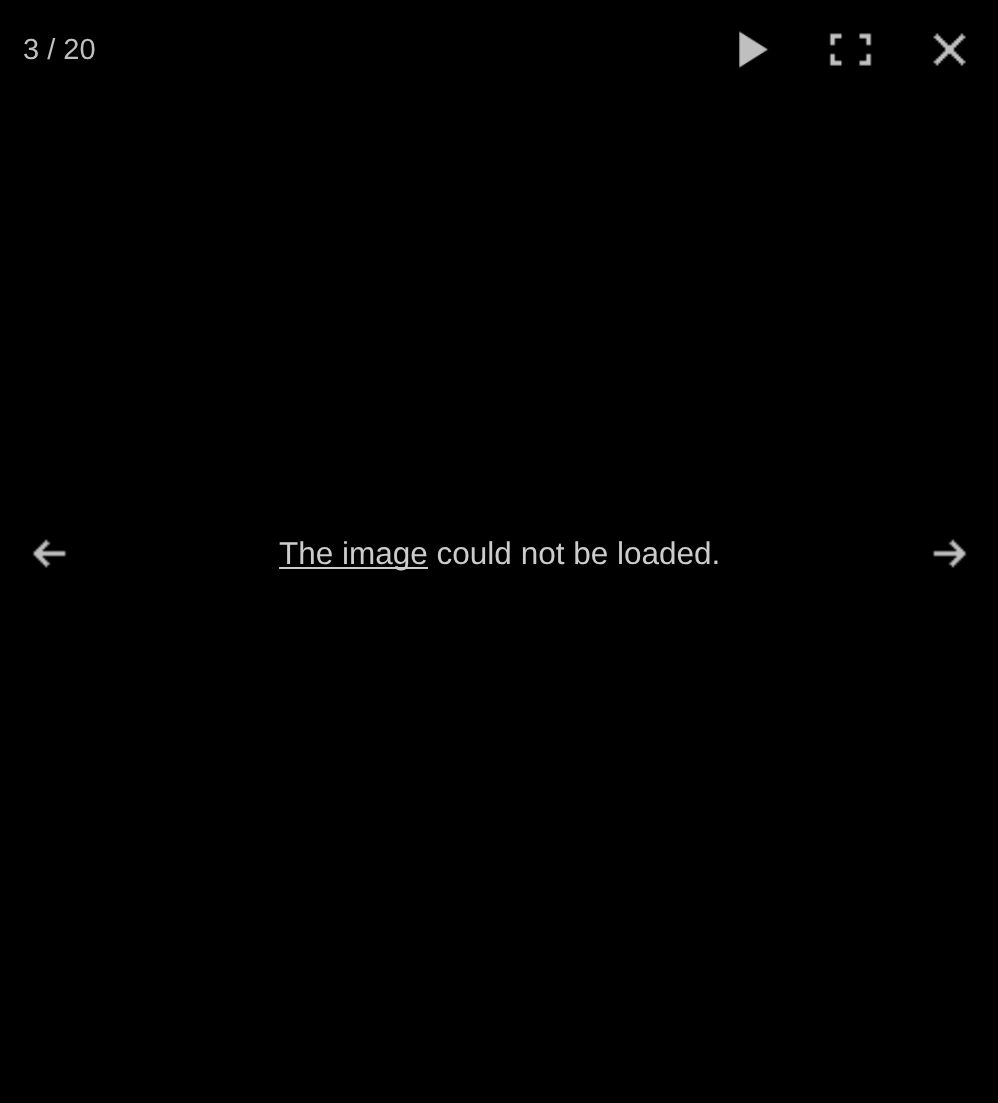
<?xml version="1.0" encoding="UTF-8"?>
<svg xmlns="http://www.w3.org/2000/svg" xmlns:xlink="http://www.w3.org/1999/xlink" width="998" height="1103">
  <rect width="100%" height="100%" fill="#000000" />
  <image x="739" y="31" width="30" height="37" xlink:href="image1.png" />
  <image x="829" y="33" width="43" height="33" xlink:href="image2.png" />
  <image x="933" y="33" width="33" height="33" xlink:href="image3.png" />
  <image x="32" y="539" width="35" height="29" xlink:href="image4.png" />
  <image x="932" y="539" width="35" height="29" xlink:href="image5.png" />
  <rect x="279" y="567" width="149" height="2" fill="#cccccc" />
  <text x="23" y="59" style="font-family: Liberation Sans; font-size: 29px; fill: #bfbfbf">3 / 20</text>
  <text x="279" y="564" style="font-family: Liberation Sans; font-size: 31.5px; fill: #cccccc">The image could not be loaded.</text>
</svg>
